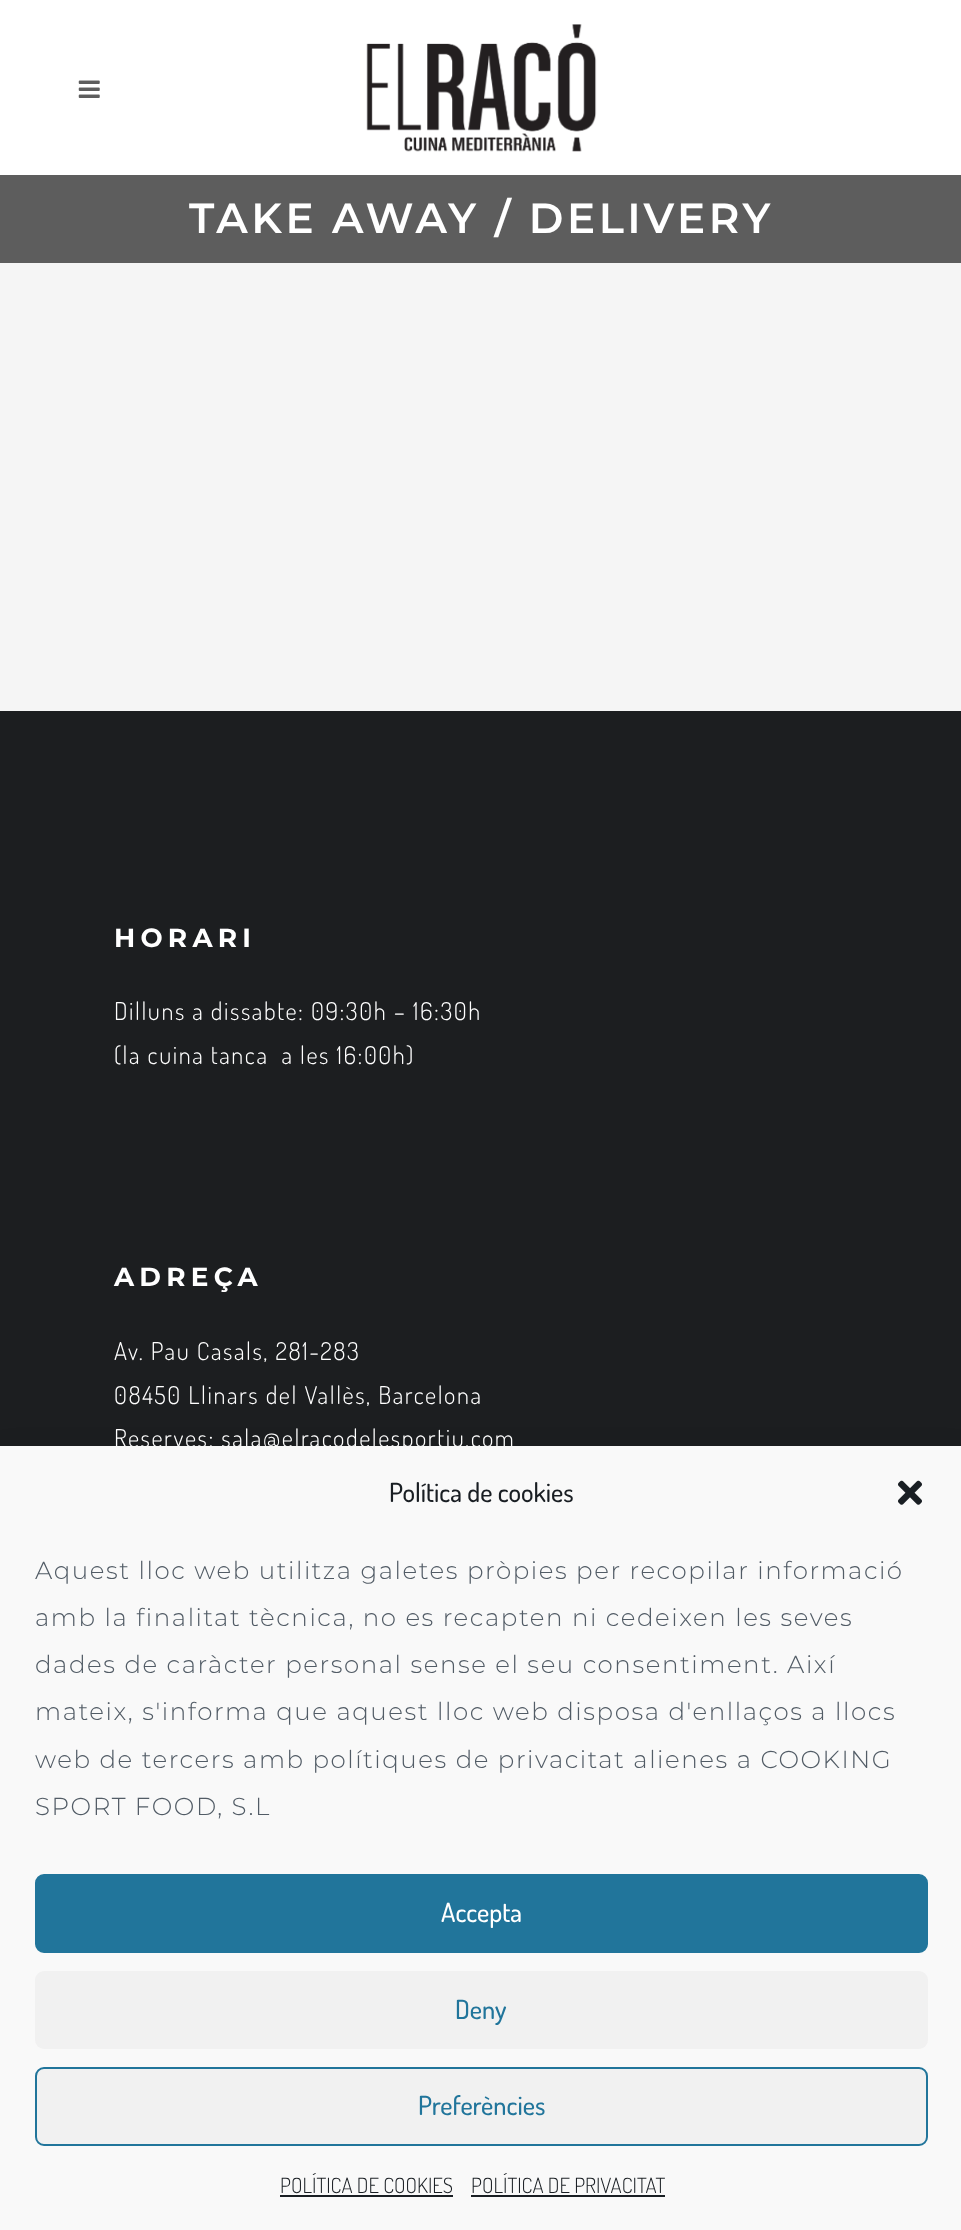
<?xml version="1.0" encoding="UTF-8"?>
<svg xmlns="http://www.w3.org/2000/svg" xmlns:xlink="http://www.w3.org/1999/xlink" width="961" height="2230">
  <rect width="100%" height="100%" fill="#f5f5f5" />
  <rect width="961" height="175" fill="#ffffff" />
  <image x="78" y="80" width="22" height="18" xlink:href="image1.png" />
  <image x="366" y="24" width="231" height="128" xlink:href="image2.png" />
  <rect y="175" width="961" height="88" fill="#5d5d5d" />
  <rect y="711" width="961" height="735" fill="#1c1e20" />
  <rect y="1463" width="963" height="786" fill="#000000" fill-opacity="0.19" filter="blur(17.5px)" />
  <text x="189" y="233" style="font-family: Montserrat; font-size: 42px; font-weight: 600; letter-spacing: 3.5px; fill: #ffffff">TAKE AWAY / DELIVERY</text>
  <text x="114" y="947" style="font-family: Montserrat; font-size: 26.25px; font-weight: bold; letter-spacing: 5.25px; fill: #ffffff">HORARI</text>
  <text x="114" y="1020" style="font-family: Dosis; font-size: 24.5px; font-weight: 300; letter-spacing: 1.57px; fill: #ffffff">Dilluns a dissabte: 09:30h – 16:30h</text>
  <text x="114" y="1064" style="font-family: Dosis; font-size: 24.5px; font-weight: 300; letter-spacing: 1.57px; fill: #ffffff" xml:space="preserve">(la cuina tanca  a les 16:00h)</text>
  <text x="114" y="1286" style="font-family: Montserrat; font-size: 26.25px; font-weight: bold; letter-spacing: 5.25px; fill: #ffffff">ADREÇA</text>
  <text x="114" y="1360" style="font-family: Dosis; font-size: 24.5px; font-weight: 300; letter-spacing: 1.57px; fill: #ffffff">Av. Pau Casals, 281-283</text>
  <text x="114" y="1404" style="font-family: Dosis; font-size: 24.5px; font-weight: 300; letter-spacing: 1.57px; fill: #ffffff">08450 Llinars del Vallès, Barcelona</text>
  <text x="114" y="1447" style="font-family: Dosis; font-size: 24.5px; font-weight: 300; letter-spacing: 1.57px; fill: #ffffff">Reserves: sala@elracodelesportiu.com</text>
  <rect y="1446" width="961" height="784" fill="#f9f9f9" />
  <text x="389" y="1502" style="font-family: Dosis; font-size: 26.25px; font-weight: 500; fill: #191e23">Política de cookies</text>
  <image x="898" y="1480" width="24" height="25" xlink:href="image3.png" />
  <text x="35" y="1579" style="font-family: Montserrat; font-size: 24.5px; font-weight: 300; letter-spacing: 1.57px; fill: #525c66">Aquest lloc web utilitza galetes pròpies per recopilar informació</text>
  <text x="35" y="1626" style="font-family: Montserrat; font-size: 24.5px; font-weight: 300; letter-spacing: 1.57px; fill: #525c66">amb la finalitat tècnica, no es recapten ni cedeixen les seves</text>
  <text x="35" y="1673" style="font-family: Montserrat; font-size: 24.5px; font-weight: 300; letter-spacing: 1.57px; fill: #525c66">dades de caràcter personal sense el seu consentiment. Així</text>
  <text x="35" y="1720" style="font-family: Montserrat; font-size: 24.5px; font-weight: 300; letter-spacing: 1.57px; fill: #525c66">mateix, s'informa que aquest lloc web disposa d'enllaços a llocs</text>
  <text x="35" y="1768" style="font-family: Montserrat; font-size: 24.5px; font-weight: 300; letter-spacing: 1.57px; fill: #525c66">web de tercers amb polítiques de privacitat alienes a COOKING</text>
  <text x="35" y="1815" style="font-family: Montserrat; font-size: 24.5px; font-weight: 300; letter-spacing: 1.57px; fill: #525c66">SPORT FOOD, S.L</text>
  <rect x="36" y="1875" width="891" height="77" rx="8" fill="#21759b" stroke="#21759b" stroke-width="2" />
  <text x="441" y="1922" style="font-family: Dosis; font-size: 26.25px; font-weight: 500; fill: #ffffff">Accepta</text>
  <rect x="35" y="1971" width="893" height="78" rx="9" fill="#f1f1f1" />
  <text x="455" y="2019" style="font-family: Dosis; font-size: 26.25px; font-weight: 500; fill: #21759b">Deny</text>
  <rect x="36" y="2068" width="891" height="77" rx="8" fill="#f1f1f1" stroke="#21759b" stroke-width="2" />
  <text x="418" y="2115" style="font-family: Dosis; font-size: 26.25px; font-weight: 500; fill: #21759b">Preferències</text>
  <text x="280" y="2193" style="font-family: Dosis; font-size: 21px; font-weight: 300; fill: #191e23">POLÍTICA DE COOKIES</text>
  <rect x="280" y="2195" width="173" height="2" fill="#191e23" />
  <text x="471" y="2193" style="font-family: Dosis; font-size: 21px; font-weight: 300; fill: #191e23">POLÍTICA DE PRIVACITAT</text>
  <rect x="471" y="2195" width="194" height="2" fill="#191e23" />
</svg>
